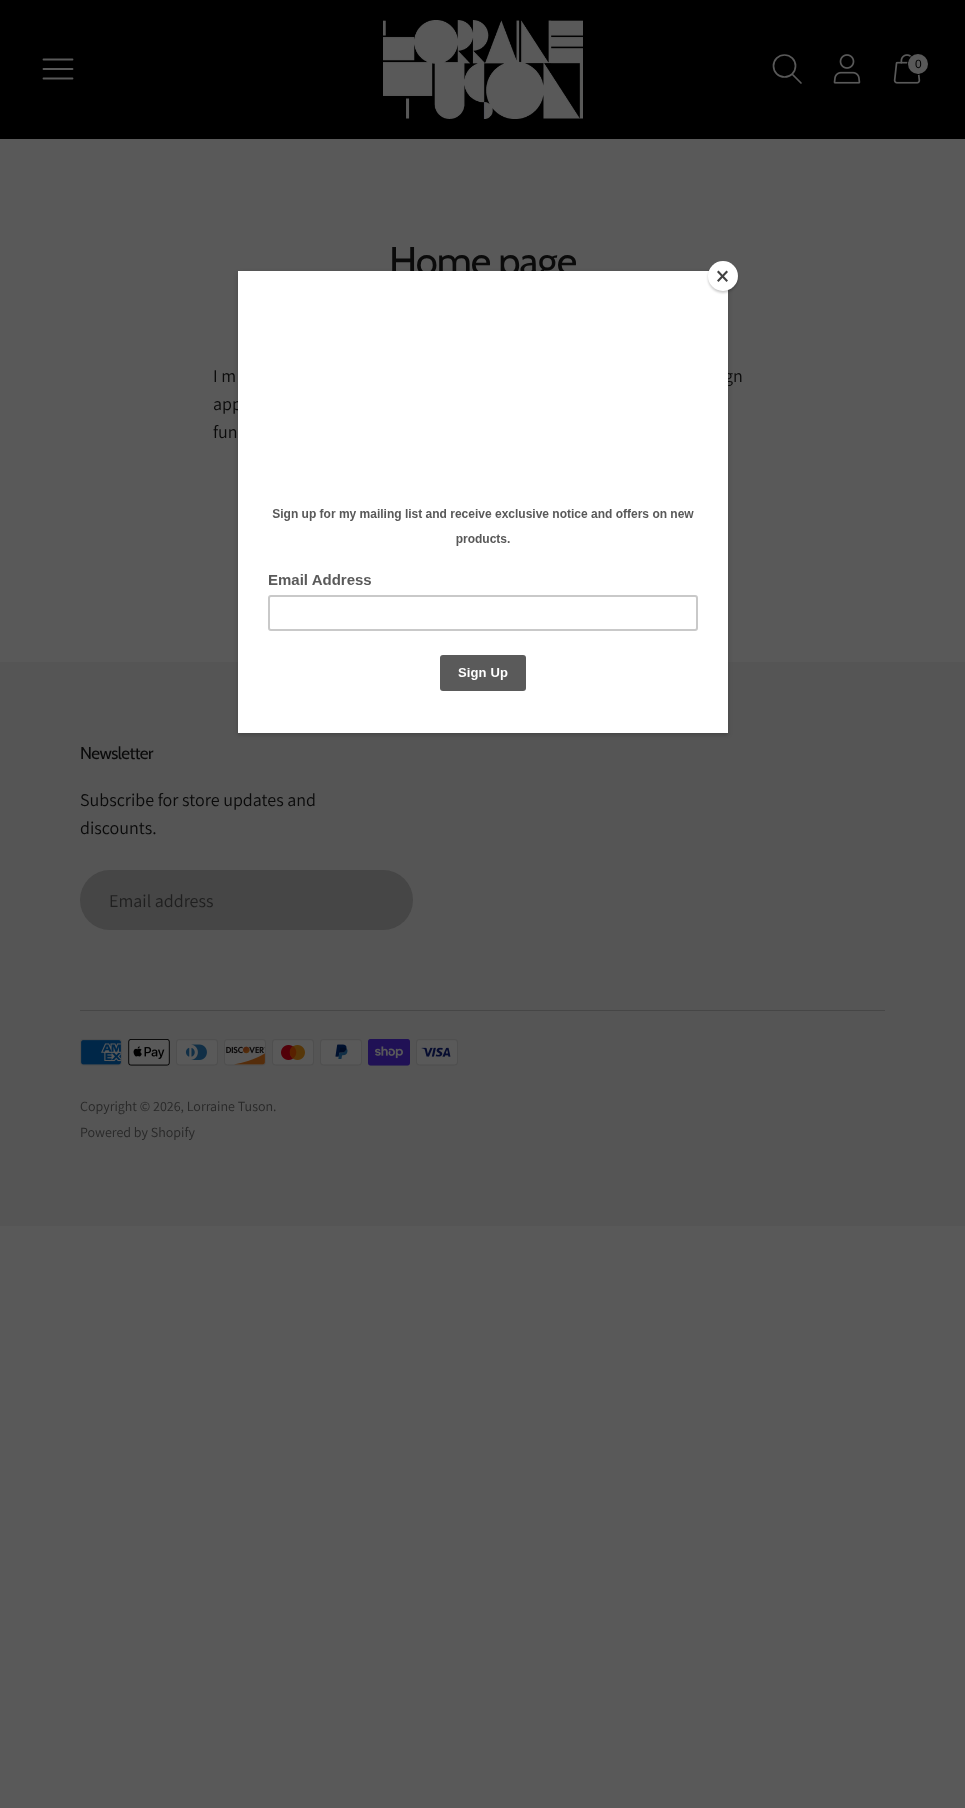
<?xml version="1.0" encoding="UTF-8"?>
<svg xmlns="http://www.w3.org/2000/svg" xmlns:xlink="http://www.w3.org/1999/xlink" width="965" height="1808">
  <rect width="100%" height="100%" fill="#595959" />
  <rect width="965" height="139" fill="#000000" />
  <path d="M 43.5 69 h 29 m -29 -9.5 h 29 m -29 19 h 29" fill="none" stroke="#595959" stroke-width="1.8" stroke-linecap="round" stroke-linejoin="round" />
  <image x="383" y="20" width="200" height="99" xlink:href="image1.png" />
  <circle cx="784.5" cy="66" r="11" fill="none" stroke="#595959" stroke-width="1.7" />
  <path d="M 792.5 74.5 l 8.5 8.5" fill="none" stroke="#595959" stroke-width="1.7" stroke-linecap="round" stroke-linejoin="round" />
  <image x="833" y="54" width="28" height="30" xlink:href="image2.png" />
  <image x="893" y="54" width="28" height="30" xlink:href="image3.png" />
  <circle cx="918" cy="64" r="10.5" fill="none" stroke="#000000" />
  <circle cx="918" cy="64" r="10" fill="#595959" />
  <rect y="662" width="965" height="564" fill="#555555" />
  <rect x="80" y="870" width="333" height="60" rx="30" fill="#464646" />
  <rect x="80" y="1010" width="805" height="1" fill="#464646" />
  <image x="80" y="1039" width="42" height="27" xlink:href="image4.png" />
  <image x="128" y="1039" width="42" height="27" xlink:href="image5.png" />
  <image x="176" y="1039" width="42" height="27" xlink:href="image6.png" />
  <image x="224" y="1039" width="42" height="27" xlink:href="image7.png" />
  <image x="272" y="1039" width="42" height="27" xlink:href="image8.png" />
  <image x="320" y="1039" width="42" height="27" xlink:href="image9.png" />
  <image x="368" y="1039" width="42" height="27" xlink:href="image10.png" />
  <image x="416" y="1039" width="42" height="27" xlink:href="image11.png" />
  <rect x="238" y="273" width="490" height="462" fill="#000000" fill-opacity="0.2" filter="blur(2px)" />
  <text x="915" y="68" style="font-family: Liberation Sans; font-size: 12px; fill: #000000">0</text>
  <text x="389" y="275" style="font-family: Cabin; font-size: 40px; letter-spacing: -1px; fill: #0a0a0a">Home page</text>
  <text x="213" y="382" style="font-family: Assistant; font-size: 18px; fill: #0a0a0a">I m</text>
  <text x="724" y="382" style="font-family: Assistant; font-size: 18px; fill: #0a0a0a">gn</text>
  <text x="213" y="410" style="font-family: Assistant; font-size: 18px; fill: #0a0a0a">app</text>
  <text x="213" y="438" style="font-family: Assistant; font-size: 18px; fill: #0a0a0a">fun</text>
  <text x="80" y="759" style="font-family: Cabin; font-size: 17px; letter-spacing: -0.5px; fill: #0a0a0a">Newsletter</text>
  <text x="80" y="806" style="font-family: Assistant; font-size: 18px; fill: #0a0a0a">Subscribe for store updates and</text>
  <text x="80" y="834" style="font-family: Assistant; font-size: 18px; fill: #0a0a0a">discounts.</text>
  <text x="109" y="907" style="font-family: Assistant; font-size: 18px; fill: #1f1f1f">Email address</text>
  <text x="80" y="1111" style="font-family: Assistant; font-size: 14px; fill: #282828">Copyright © 2026, Lorraine Tuson.</text>
  <text x="80" y="1137" style="font-family: Assistant; font-size: 14px; fill: #282828">Powered by Shopify</text>
  <image x="238" y="271" width="490" height="462" xlink:href="image12.png" />
  <rect x="708" y="263" width="30" height="30" rx="15" fill="#000000" fill-opacity="0.2" filter="blur(1px)" />
  <circle cx="723" cy="276" r="15" fill="#ffffff" />
  <path d="M 726.5 270.5 l 1.5 1.5 l -9.5 10 l -1.5 -1.5 z" fill="#414141" />
  <path d="M 717 272 l 1.5 -1.5 l 9.5 10 l -1.5 1.5 z" fill="#414141" />
</svg>
